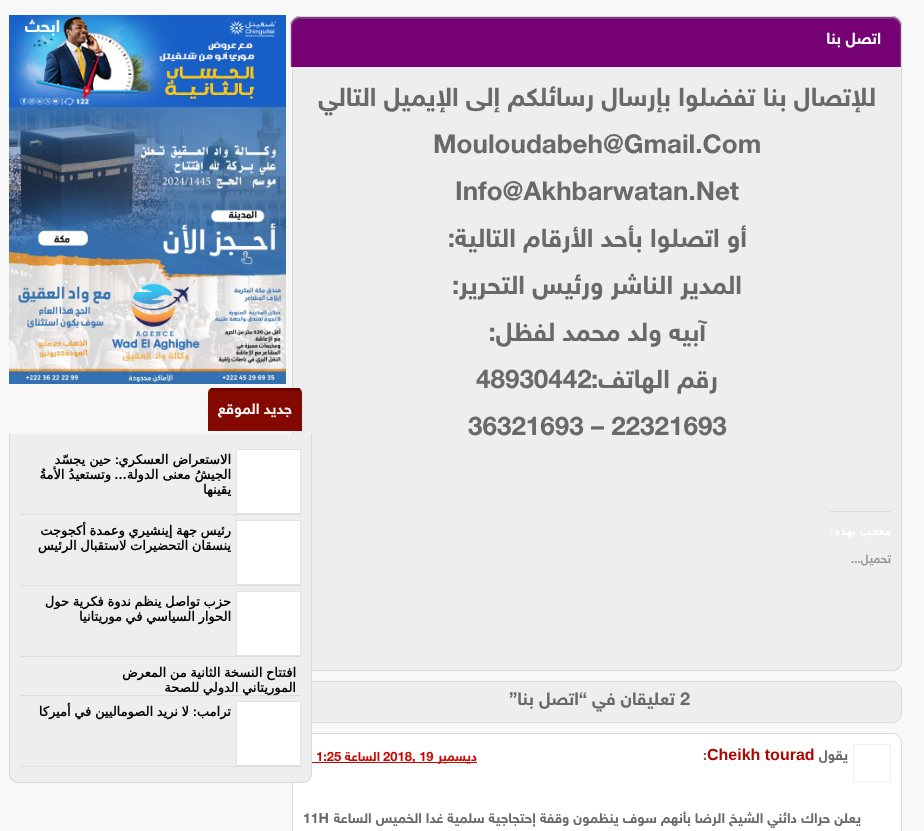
<?xml version="1.0" encoding="UTF-8"?>
<svg xmlns="http://www.w3.org/2000/svg" xmlns:xlink="http://www.w3.org/1999/xlink" width="924" height="831">
  <rect width="100%" height="100%" fill="#f8f8f8" />
  <path d="M 300 16 h 592 c 5.5 0 10 4.5 10 10 v 41 h -612 v -41 c 0 -5.5 4.5 -10 10 -10 z" fill="#760174" />
  <path d="M 300 19 h 592 c 4 0 8 4 8 8 v 40 h 1 v -41 c 0 -5 -4 -9 -9 -9 h -592 c -5 0 -9 4 -9 9 v 41 h 1 v -40 c 0 -4 4 -8 8 -8 z" fill="#7f3782" />
  <path d="M 300 16 h 592 c 6 0 10 4 10 10 v 41 h -612 v -41 c 0 -6 4 -10 10 -10 z m 0 1 h 592 c 5 0 9 4 9 9 v 41 h -610 v -41 c 0 -5 4 -9 9 -9 z" fill="#d8d8d8" fill-rule="evenodd" />
  <path d="M 292 67 h 610 v 594 c 0 5.5 -4.5 10 -10 10 h -590 c -5.5 0 -10 -4.5 -10 -10 z" fill="#eeeeee" />
  <path d="M 292 67 h 610 v 594 c 0 6 -4 10 -10 10 h -590 c -6 0 -10 -4 -10 -10 z m 1 0 h 608 v 594 c 0 5 -4 9 -9 9 h -590 c -5 0 -9 -4 -9 -9 z" fill="#dadada" fill-rule="evenodd" />
  <rect x="830" y="511" width="61" height="1" fill="#dcdcde" />
  <rect x="296.5" y="681.5" width="605" height="41" rx="9.5" fill="#eeeeee" stroke="#dadada" />
  <rect x="292.5" y="733.5" width="609" height="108" rx="9.5" fill="#ffffff" stroke="#dadada" />
  <rect x="853.5" y="744.5" width="37" height="37" fill="none" stroke="#eeeeee" />
  <rect x="312" y="762" width="165" height="1" fill="#cb0701" />
  <image x="9" y="15" width="277" height="92" xlink:href="image1.png" />
  <image x="9" y="107" width="277" height="277" xlink:href="image2.png" />
  <path d="M 213 388 h 84 c 3 0 5 2 5 5 v 38 h -94 v -38 c 0 -3 2 -5 5 -5 z" fill="#830900" />
  <rect x="211" y="388" width="89" height="3" fill="#6f0100" />
  <path d="M 9 434 h 303 v 339 c 0 5.5 -4.5 10 -10 10 h -283 c -5.5 0 -10 -4.5 -10 -10 z" fill="#eeeeee" />
  <path d="M 9 434 h 303 v 339 c 0 6 -4 10 -10 10 h -283 c -6 0 -10 -4 -10 -10 z m 1 0 h 301 v 339 c 0 5 -4 9 -9 9 h -283 c -5 0 -9 -4 -9 -9 z" fill="#dadada" fill-rule="evenodd" />
  <rect x="20" y="514" width="281" height="1" fill="#dddddd" />
  <rect x="236.5" y="449.5" width="64" height="64" fill="#ffffff" stroke="#e2e2e2" />
  <rect x="20" y="585" width="281" height="1" fill="#dddddd" />
  <rect x="236.5" y="520.5" width="64" height="64" fill="#ffffff" stroke="#e2e2e2" />
  <rect x="20" y="656" width="281" height="1" fill="#dddddd" />
  <rect x="236.5" y="591.5" width="64" height="64" fill="#ffffff" stroke="#e2e2e2" />
  <rect x="20" y="695" width="281" height="1" fill="#dddddd" />
  <rect x="20" y="766" width="281" height="1" fill="#dddddd" />
  <rect x="236.5" y="701.5" width="64" height="64" fill="#ffffff" stroke="#e2e2e2" />
  <text x="60" y="32" style="font-family: 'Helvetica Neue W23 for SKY'; font-size: 17px; font-weight: bold; direction: rtl; fill: #ffffff">ابحث</text>
  <text x="881" y="44" style="font-family: 'Helvetica Neue W23 for SKY'; font-size: 16px; font-weight: bold; direction: rtl; fill: #ffffff">اتصل بنا</text>
  <text x="876" y="106" style="font-family: 'Helvetica Neue W23 for SKY'; font-size: 26px; font-weight: bold; direction: rtl; fill: #696969">للإتصال بنا تفضلوا بإرسال رسائلكم إلى الإيميل التالي</text>
  <text x="433" y="153" style="font-family: 'Helvetica Neue W23 for SKY'; font-size: 26px; font-weight: bold; fill: #696969">Mouloudabeh@Gmail.Com</text>
  <text x="455" y="200" style="font-family: 'Helvetica Neue W23 for SKY'; font-size: 26px; font-weight: bold; fill: #696969">Info@Akhbarwatan.Net</text>
  <text x="747" y="247" style="font-family: 'Helvetica Neue W23 for SKY'; font-size: 26px; font-weight: bold; direction: rtl; fill: #696969">أو اتصلوا بأحد الأرقام التالية:</text>
  <text x="742" y="294" style="font-family: 'Helvetica Neue W23 for SKY'; font-size: 26px; font-weight: bold; direction: rtl; fill: #696969">المدير الناشر ورئيس التحرير</text>
  <text x="452" y="294" style="font-family: 'Helvetica Neue W23 for SKY'; font-size: 26px; font-weight: bold; fill: #696969">:</text>
  <text x="706" y="341" style="font-family: 'Helvetica Neue W23 for SKY'; font-size: 26px; font-weight: bold; direction: rtl; fill: #696969">آبيه ولد محمد لفظل:</text>
  <text x="718" y="388" style="font-family: 'Helvetica Neue W23 for SKY'; font-size: 26px; font-weight: bold; direction: rtl; fill: #696969">رقم الهاتف:</text>
  <text x="476" y="388" style="font-family: 'Helvetica Neue W23 for SKY'; font-size: 26px; font-weight: bold; fill: #696969">48930442</text>
  <text x="468" y="435" style="font-family: 'Helvetica Neue W23 for SKY'; font-size: 26px; font-weight: bold; fill: #696969">36321693 – 22321693</text>
  <text x="891" y="535" style="font-family: DejaVu Sans; font-size: 12px; font-weight: bold; direction: rtl; fill: #ffffff">معجب بهذه</text>
  <text x="834" y="535" style="font-family: Liberation Sans; font-size: 12px; font-weight: bold; direction: rtl; fill: #ffffff">:</text>
  <text x="891" y="563" style="font-family: 'Helvetica Neue W23 for SKY'; font-size: 12px; font-weight: bold; direction: rtl; fill: #999999">تحميل...</text>
  <text x="680" y="705" style="font-family: 'Helvetica Neue W23 for SKY'; font-size: 18px; font-weight: bold; fill: #696969">2</text>
  <text x="675" y="705" style="font-family: 'Helvetica Neue W23 for SKY'; font-size: 18px; font-weight: bold; direction: rtl; fill: #696969">تعليقان في “اتصل بنا”</text>
  <text x="848" y="760" style="font-family: 'Helvetica Neue W23 for SKY'; font-size: 14px; font-weight: bold; direction: rtl; fill: #696969">يقول</text>
  <text x="707" y="760" style="font-family: Liberation Sans; font-size: 16px; font-weight: bold; fill: #ac0600">Cheikh tourad</text>
  <text x="703" y="760" style="font-family: 'Helvetica Neue W23 for SKY'; font-size: 14px; font-weight: bold; fill: #696969">:</text>
  <text x="477" y="761" style="font-family: 'Helvetica Neue W23 for SKY'; font-size: 13px; font-weight: bold; direction: rtl; fill: #cb0701">ديسمبر</text>
  <text x="383" y="761" style="font-family: 'Helvetica Neue W23 for SKY'; font-size: 13px; font-weight: bold; fill: #cb0701">2018, 19</text>
  <text x="380" y="761" style="font-family: 'Helvetica Neue W23 for SKY'; font-size: 13px; font-weight: bold; direction: rtl; fill: #cb0701">الساعة</text>
  <text x="316" y="761" style="font-family: 'Helvetica Neue W23 for SKY'; font-size: 13px; font-weight: bold; fill: #cb0701">1:25</text>
  <text x="861" y="823" word-spacing="0.1" style="font-family: 'Helvetica Neue W23 for SKY'; font-size: 14px; font-weight: bold; direction: rtl; fill: #696969">يعلن حراك دائني الشيخ الرضا بأنهم سوف ينظمون وقفة إحتجاجية سلمية غدا الخميس الساعة</text>
  <text x="303" y="823" style="font-family: 'Helvetica Neue W23 for SKY'; font-size: 14px; font-weight: bold; fill: #696969">11H</text>
  <text x="292" y="414" style="font-family: 'Helvetica Neue W23 for SKY'; font-size: 15px; font-weight: bold; direction: rtl; fill: #f4f4f4">جديد الموقع</text>
  <text x="231" y="464" style="font-family: DejaVu Sans; font-size: 13px; font-weight: bold; direction: rtl; fill: #000000">الاستعراض العسكري</text>
  <text x="119" y="464" style="font-family: Liberation Sans; font-size: 13px; font-weight: bold; direction: rtl; fill: #000000">:</text>
  <text x="111" y="464" style="font-family: DejaVu Sans; font-size: 13px; font-weight: bold; direction: rtl; fill: #000000">حين يجسّد</text>
  <text x="231" y="479" style="font-family: DejaVu Sans; font-size: 13px; font-weight: bold; direction: rtl; fill: #000000">الجيشُ معنى الدولة</text>
  <text x="127" y="479" style="font-family: Liberation Sans; font-size: 13px; font-weight: bold; direction: rtl; fill: #000000">…</text>
  <text x="111" y="479" style="font-family: DejaVu Sans; font-size: 13px; font-weight: bold; direction: rtl; fill: #000000">وتستعيدُ الأمةُ</text>
  <text x="231" y="494" style="font-family: DejaVu Sans; font-size: 13px; font-weight: bold; direction: rtl; fill: #000000">يقينها</text>
  <text x="231" y="535" word-spacing="-0.5" style="font-family: DejaVu Sans; font-size: 13px; font-weight: bold; direction: rtl; fill: #000000">رئيس جهة إينشيري وعمدة أكجوجت</text>
  <text x="231" y="550" word-spacing="-0.5" style="font-family: DejaVu Sans; font-size: 13px; font-weight: bold; direction: rtl; fill: #000000">ينسقان التحضيرات لاستقبال الرئيس</text>
  <text x="231" y="606" word-spacing="-0.5" style="font-family: DejaVu Sans; font-size: 13px; font-weight: bold; direction: rtl; fill: #000000">حزب تواصل ينظم ندوة فكرية حول</text>
  <text x="231" y="621" word-spacing="-0.5" style="font-family: DejaVu Sans; font-size: 13px; font-weight: bold; direction: rtl; fill: #000000">الحوار السياسي في</text>
  <text x="122" y="621" style="font-family: DejaVu Sans; font-size: 13px; font-weight: bold; direction: rtl; fill: #000000">موريتانيا</text>
  <text x="296" y="677" word-spacing="-0.5" style="font-family: DejaVu Sans; font-size: 13px; font-weight: bold; direction: rtl; fill: #000000">افتتاح النسخة الثانية من المعرض</text>
  <text x="296" y="692" word-spacing="-0.5" style="font-family: DejaVu Sans; font-size: 13px; font-weight: bold; direction: rtl; fill: #000000">الموريتاني الدولي للصحة</text>
  <text x="231" y="716" style="font-family: DejaVu Sans; font-size: 13px; font-weight: bold; direction: rtl; fill: #000000">ترامب</text>
  <text x="197" y="716" style="font-family: Liberation Sans; font-size: 13px; font-weight: bold; direction: rtl; fill: #000000">:</text>
  <text x="189" y="716" word-spacing="-0.5" style="font-family: DejaVu Sans; font-size: 13px; font-weight: bold; direction: rtl; fill: #000000">لا نريد الصوماليين في أميركا</text>
</svg>
